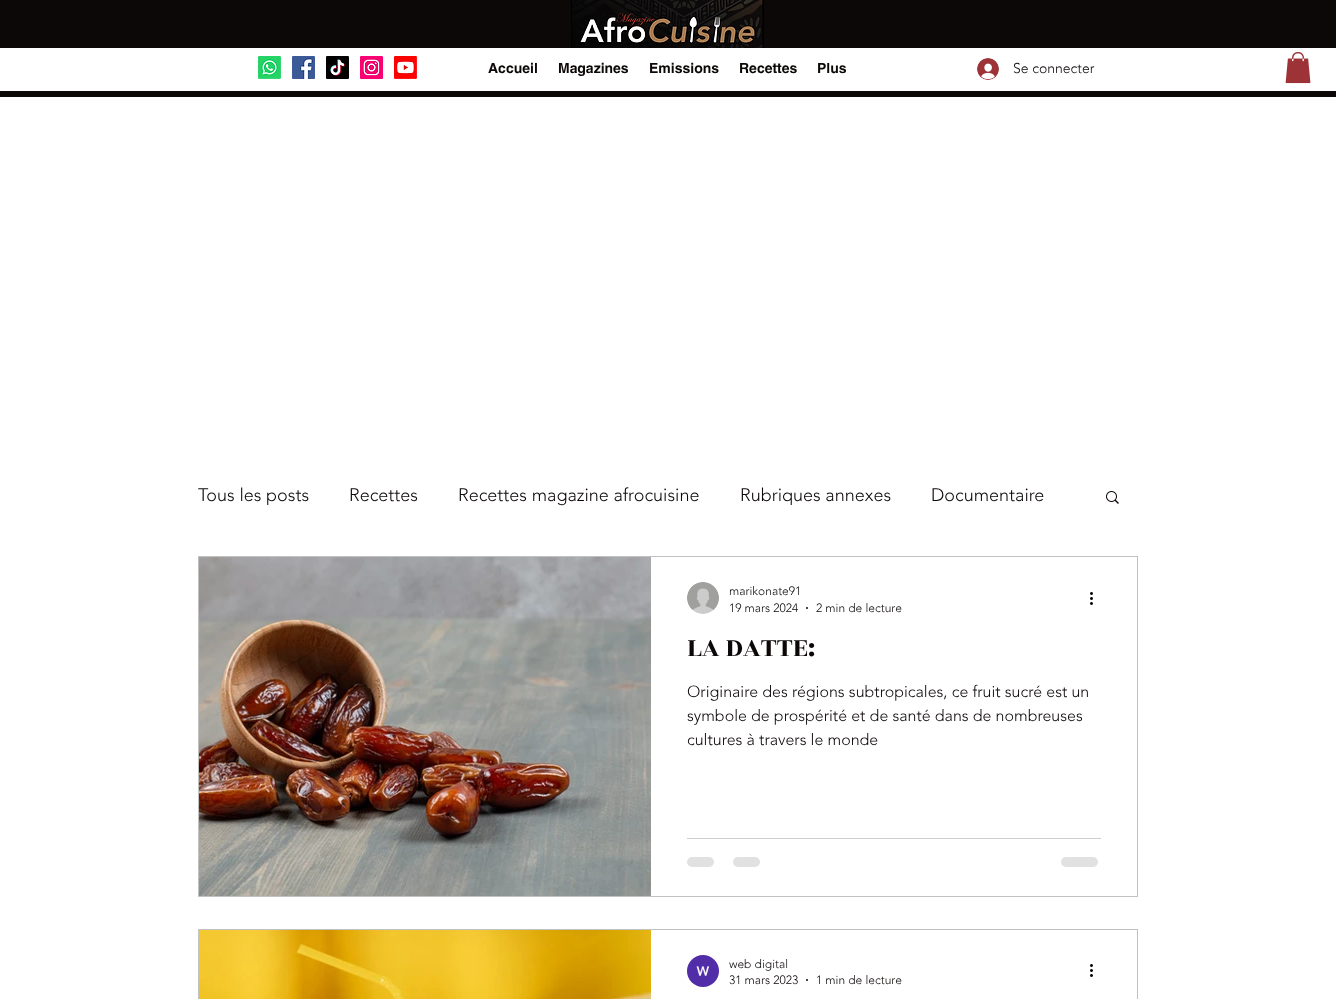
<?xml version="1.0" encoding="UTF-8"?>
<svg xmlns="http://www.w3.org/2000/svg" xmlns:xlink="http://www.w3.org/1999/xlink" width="1336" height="999">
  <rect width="100%" height="100%" fill="#ffffff" />
  <rect width="1336" height="97" fill="#0c0807" />
  <image x="571" y="0" width="193" height="48" xlink:href="image1.png" />
  <rect y="48" width="1336" height="43" fill="#ffffff" />
  <image x="258" y="56" width="23" height="23" xlink:href="image2.png" />
  <image x="292" y="56" width="23" height="23" xlink:href="image3.png" />
  <image x="326" y="56" width="23" height="23" xlink:href="image4.png" />
  <image x="360" y="56" width="23" height="23" xlink:href="image5.png" />
  <image x="394" y="56" width="23" height="23" xlink:href="image6.png" />
  <image x="977" y="58" width="22" height="22" xlink:href="image7.png" />
  <image x="1285" y="52" width="26" height="32" xlink:href="image8.png" />
  <image x="1106" y="491" width="13" height="13" xlink:href="image9.png" />
  <rect x="198.5" y="556.5" width="939" height="340" fill="none" stroke="#c2c1c1" />
  <image x="199" y="557" width="452" height="339" xlink:href="image10.png" />
  <image x="687" y="582" width="32" height="32" xlink:href="image11.png" />
  <circle cx="807" cy="608" r="1" fill="#0c0807" />
  <image x="1090" y="592" width="3" height="13" xlink:href="image12.png" />
  <rect x="687" y="838" width="414" height="1" fill="#cececd" />
  <rect x="687" y="857" width="27" height="10" rx="5" fill="#e2e1e1" />
  <rect x="733" y="857" width="27" height="10" rx="5" fill="#e2e1e1" />
  <rect x="1061" y="857" width="37" height="10" rx="5" fill="#e2e1e1" />
  <rect x="198.5" y="929.5" width="939" height="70" fill="none" stroke="#c2c1c1" />
  <image x="199" y="930" width="452" height="69" xlink:href="image13.png" />
  <image x="687" y="955" width="32" height="32" xlink:href="image14.png" />
  <circle cx="807" cy="980" r="1" fill="#0c0807" />
  <image x="1090" y="964" width="3" height="13" xlink:href="image12.png" />
  <text x="488" y="73" style="font-family: helvetica; font-size: 14px; font-weight: bold; fill: #0c0807">Accueil</text>
  <text x="558" y="73" style="font-family: helvetica; font-size: 14px; font-weight: bold; fill: #0c0807">Magazines</text>
  <text x="649" y="73" style="font-family: helvetica; font-size: 14px; font-weight: bold; fill: #0c0807">Emissions</text>
  <text x="739" y="73" style="font-family: helvetica; font-size: 14px; font-weight: bold; fill: #0c0807">Recettes</text>
  <text x="817" y="73" style="font-family: helvetica; font-size: 14px; font-weight: bold; fill: #0c0807">Plus</text>
  <text x="1013" y="73" style="font-family: 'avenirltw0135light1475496'; font-size: 14px; font-weight: 300; fill: #0c0807">Se connecter</text>
  <text x="198" y="501" style="font-family: 'avenirltw0135light1475496'; font-size: 18px; font-weight: 300; fill: #0c0807">Tous les posts</text>
  <text x="349" y="501" style="font-family: 'avenirltw0135light1475496'; font-size: 18px; font-weight: 300; fill: #0c0807">Recettes</text>
  <text x="458" y="501" style="font-family: 'avenirltw0135light1475496'; font-size: 18px; font-weight: 300; fill: #0c0807">Recettes magazine afrocuisine</text>
  <text x="740" y="501" style="font-family: 'avenirltw0135light1475496'; font-size: 18px; font-weight: 300; fill: #0c0807">Rubriques annexes</text>
  <text x="931" y="501" style="font-family: 'avenirltw0135light1475496'; font-size: 18px; font-weight: 300; fill: #0c0807">Documentaire</text>
  <text x="729" y="595" style="font-family: 'avenirltw0135light1475496'; font-size: 12px; font-weight: 300; fill: #0c0807">marikonate91</text>
  <text x="729" y="612" style="font-family: 'avenirltw0135light1475496'; font-size: 12px; font-weight: 300; fill: #0c0807">19 mars 2024</text>
  <text x="816" y="612" style="font-family: 'avenirltw0135light1475496'; font-size: 12px; font-weight: 300; fill: #0c0807">2 min de lecture</text>
  <text x="687" y="656" style="font-family: Rozha One; font-size: 28px; fill: #0c0807">LA DATTE:</text>
  <text x="687" y="697" style="font-family: 'avenirltw0135light1475496'; font-size: 16px; font-weight: 300; fill: #0c0807">Originaire des régions subtropicales, ce fruit sucré est un</text>
  <text x="687" y="721" style="font-family: 'avenirltw0135light1475496'; font-size: 16px; font-weight: 300; fill: #0c0807">symbole de prospérité et de santé dans de nombreuses</text>
  <text x="687" y="745" style="font-family: 'avenirltw0135light1475496'; font-size: 16px; font-weight: 300; fill: #0c0807">cultures à travers le monde</text>
  <text x="729" y="968" style="font-family: 'avenirltw0135light1475496'; font-size: 12px; font-weight: 300; fill: #0c0807">web digital</text>
  <text x="729" y="984" style="font-family: 'avenirltw0135light1475496'; font-size: 12px; font-weight: 300; fill: #0c0807">31 mars 2023</text>
  <text x="816" y="984" style="font-family: 'avenirltw0135light1475496'; font-size: 12px; font-weight: 300; fill: #0c0807">1 min de lecture</text>
</svg>
